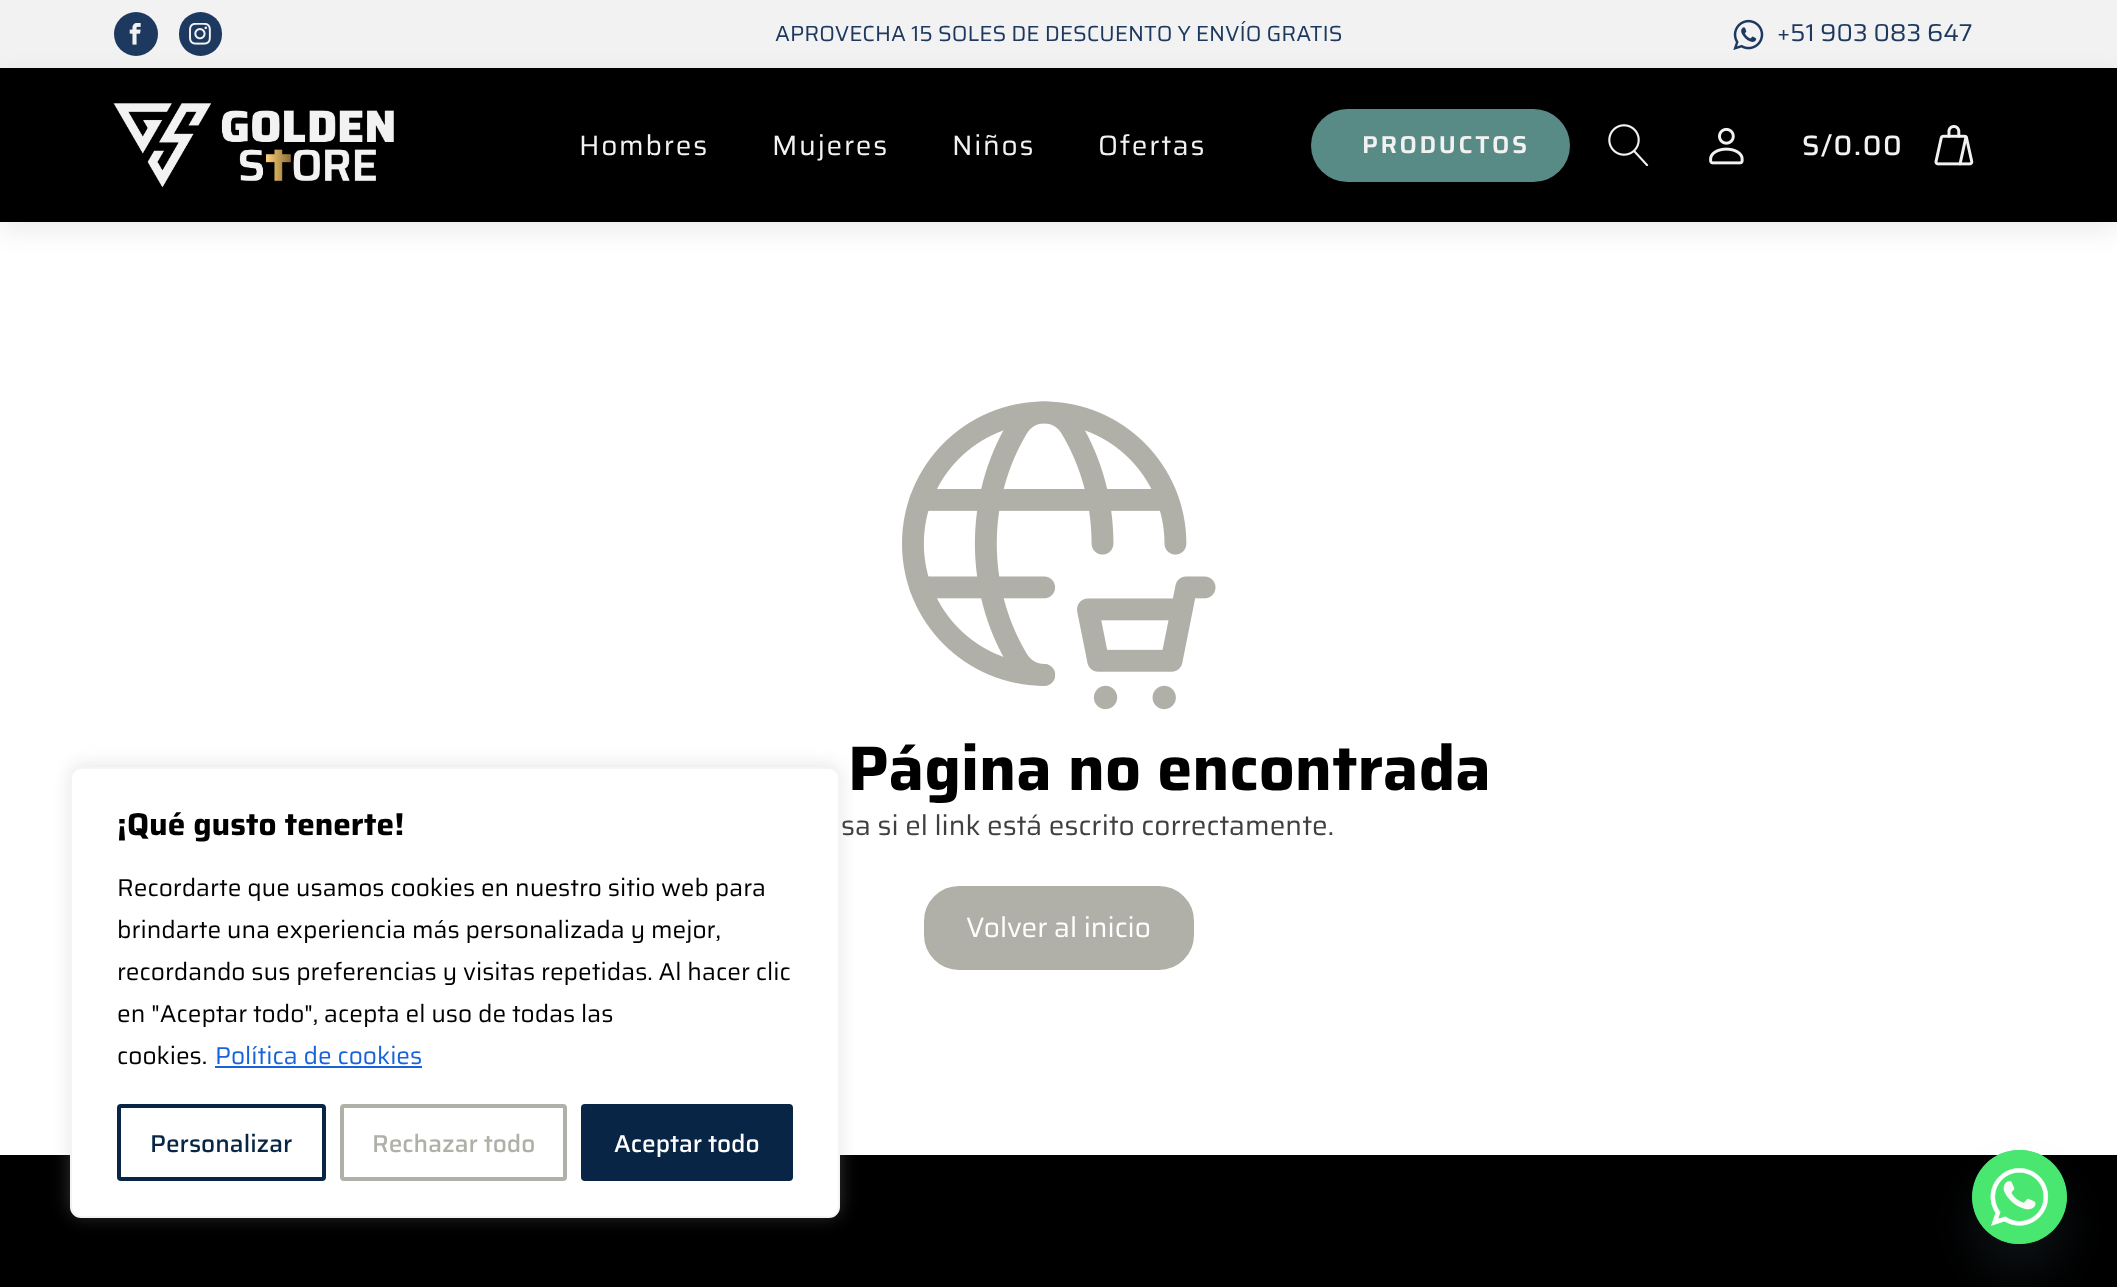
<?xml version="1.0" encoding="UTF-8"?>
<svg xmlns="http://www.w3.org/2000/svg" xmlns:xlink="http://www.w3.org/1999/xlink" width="2117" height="1287">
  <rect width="100%" height="100%" fill="#ffffff" />
  <rect width="2117" height="68" fill="#f2f2f2" />
  <circle cx="136" cy="34" r="22" fill="#1d3960" />
  <image x="129" y="23" width="12" height="22" xlink:href="image1.png" />
  <rect x="179" y="12" width="43" height="44" rx="21.5" fill="#1d3960" />
  <image x="189" y="23" width="22" height="22" xlink:href="image2.png" />
  <image x="1733" y="19" width="31" height="31" xlink:href="image3.png" />
  <rect y="77" width="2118" height="154" fill="#000000" fill-opacity="0.08" filter="blur(13px)" />
  <rect y="68" width="2117" height="154" fill="#000000" />
  <image x="113" y="103" width="281" height="85" xlink:href="image4.png" />
  <rect x="1311" y="109" width="259" height="73" rx="36.5" fill="#588a86" />
  <image x="1608" y="124" width="41" height="42" xlink:href="image5.png" />
  <image x="1709" y="127" width="35" height="38" xlink:href="image6.png" />
  <image x="1934" y="124" width="40" height="42" xlink:href="image7.png" />
  <rect y="1155" width="2117" height="132" fill="#000000" />
  <rect x="70" y="765" width="770" height="451" rx="11" fill="#acabab" fill-opacity="0.3" filter="blur(9px)" />
  <rect x="71" y="768" width="768" height="449" rx="10" fill="#ffffff" stroke="#f4f4f4" stroke-width="2" />
  <rect x="215" y="1066" width="207" height="2" fill="#1863dc" />
  <rect x="119" y="1106" width="205" height="73" rx="2" fill="none" stroke="#082545" stroke-width="4" />
  <rect x="342" y="1106" width="223" height="73" rx="2" fill="none" stroke="#b0b0a8" stroke-width="4" />
  <rect x="583" y="1106" width="208" height="73" rx="2" fill="#082545" stroke="#082545" stroke-width="4" />
  <image x="902" y="401" width="314" height="309" xlink:href="image8.png" />
  <rect x="925" y="887" width="268" height="82" rx="34" fill="#b0b0a8" stroke="#b0b0a8" stroke-width="2" />
  <rect x="1972" y="1178" width="95" height="94" rx="47" fill="#49687e" fill-opacity="0.16" filter="blur(21px)" />
  <rect x="1972" y="1150" width="95" height="94" rx="47" fill="#49e670" />
  <image x="1972" y="1150" width="95" height="94" xlink:href="image9.png" />
  <text x="775" y="41" style="font-family: Saira; font-size: 21.9px; fill: #1d3960">APROVECHA 15 SOLES DE DESCUENTO Y ENVÍO GRATIS</text>
  <text x="1777" y="41" style="font-family: Saira; font-size: 24.5px; fill: #1d3960">+51 903 083 647</text>
  <text x="579" y="155" style="font-family: Saira; font-size: 28px; letter-spacing: 1.75px; fill: #f2f2f2">Hombres</text>
  <text x="772" y="155" style="font-family: Saira; font-size: 28px; letter-spacing: 1.75px; fill: #f2f2f2">Mujeres</text>
  <text x="952" y="155" style="font-family: Saira; font-size: 28px; letter-spacing: 1.75px; fill: #f2f2f2">Niños</text>
  <text x="1098" y="155" style="font-family: Saira; font-size: 28px; letter-spacing: 1.75px; fill: #f2f2f2">Ofertas</text>
  <text x="1362" y="153" style="font-family: Saira; font-size: 24.5px; font-weight: 600; letter-spacing: 2.6px; fill: #f2f2f2">PRODUCTOS</text>
  <text x="1802" y="155" style="font-family: Saira; font-size: 28px; font-weight: 500; letter-spacing: 1.75px; fill: #f2f2f2">S/0.00</text>
  <text x="117" y="835" style="font-family: Saira; font-size: 31.5px; font-weight: bold; fill: #000000">¡Qué gusto tenerte!</text>
  <text x="117" y="896" style="font-family: Saira; font-size: 24.5px; fill: #000000">Recordarte que usamos cookies en nuestro sitio web para</text>
  <text x="117" y="938" style="font-family: Saira; font-size: 24.5px; fill: #000000">brindarte una experiencia más personalizada y mejor,</text>
  <text x="117" y="980" style="font-family: Saira; font-size: 24.5px; fill: #000000">recordando sus preferencias y visitas repetidas. Al hacer clic</text>
  <text x="117" y="1022" style="font-family: Saira; font-size: 24.5px; fill: #000000">en "Aceptar todo", acepta el uso de todas las</text>
  <text x="117" y="1064" style="font-family: Saira; font-size: 24.5px; fill: #000000">cookies.</text>
  <text x="215" y="1064" style="font-family: Saira; font-size: 24.5px; fill: #1863dc">Política de cookies</text>
  <text x="150" y="1152" style="font-family: Saira; font-size: 24.5px; font-weight: 500; fill: #082545">Personalizar</text>
  <text x="372" y="1152" style="font-family: Saira; font-size: 24.5px; font-weight: 500; fill: #b0b0a8">Rechazar todo</text>
  <text x="614" y="1152" style="font-family: Saira; font-size: 24.5px; font-weight: 500; fill: #ffffff">Aceptar todo</text>
  <text x="848" y="790" style="font-family: Saira; font-size: 63px; font-weight: bold; fill: #000000">Página no encontrada</text>
  <text x="841" y="835" style="font-family: Saira; font-size: 28px; fill: #404040">sa si el link está escrito correctamente.</text>
  <text x="966" y="937" style="font-family: Saira; font-size: 28px; fill: #ffffff">Volver al inicio</text>
</svg>
